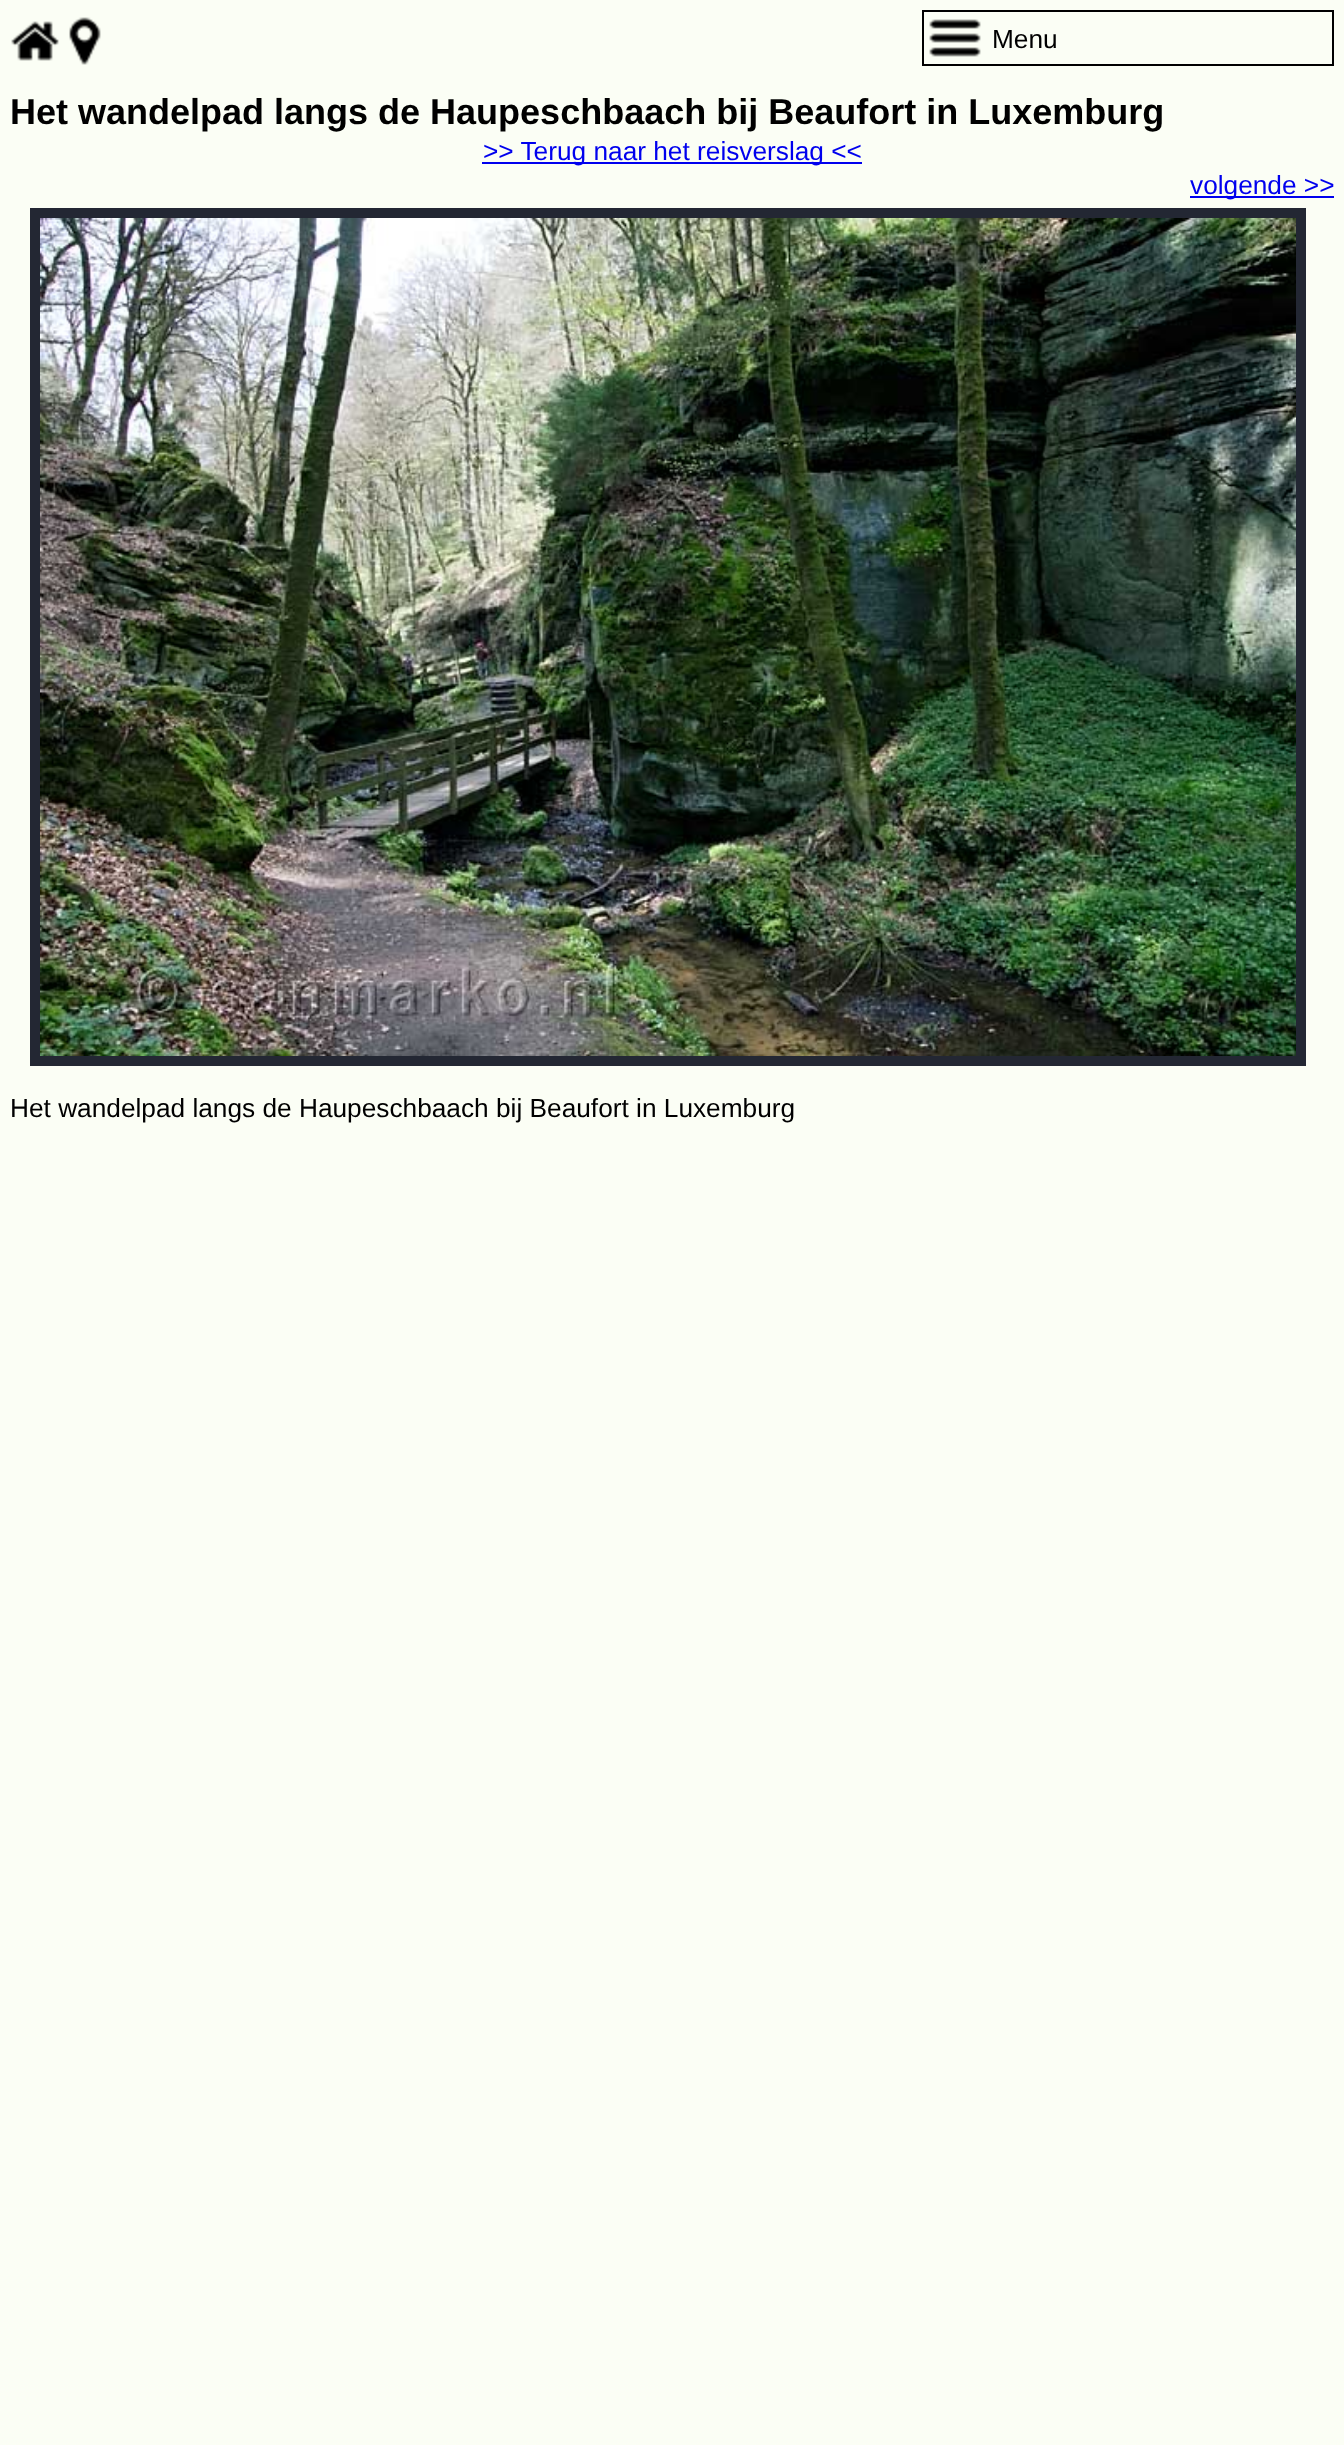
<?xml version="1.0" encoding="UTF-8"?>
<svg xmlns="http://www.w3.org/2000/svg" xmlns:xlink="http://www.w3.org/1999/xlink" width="1344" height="2445">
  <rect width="100%" height="100%" fill="#fbfef5" />
  <image x="11" y="21" width="48" height="40" xlink:href="image1.png" />
  <image x="69" y="17" width="32" height="48" xlink:href="image2.png" />
  <rect x="923" y="11" width="410" height="54" fill="none" stroke="#000000" stroke-width="2" />
  <image x="929" y="19" width="52" height="38" xlink:href="image3.png" />
  <rect x="482" y="162" width="380" height="2" fill="#0000ee" />
  <rect x="1190" y="196" width="144" height="2" fill="#0000ee" />
  <rect x="35" y="213" width="1266" height="848" fill="none" stroke="#232733" stroke-width="10" />
  <image x="40" y="218" width="1256" height="838" xlink:href="image4.png" />
  <text x="992" y="48" style="font-family: Liberation Sans; font-size: 26.25px; fill: #000000">Menu</text>
  <text x="10" y="124" style="font-family: Liberation Sans; font-size: 36px; font-weight: bold; fill: #000000">Het wandelpad langs de Haupeschbaach bij Beaufort in Luxemburg</text>
  <text x="483" y="160" style="font-family: Liberation Sans; font-size: 26.25px; fill: #0000ee">&gt;&gt; Terug naar het reisverslag &lt;&lt;</text>
  <text x="1190" y="194" style="font-family: Liberation Sans; font-size: 26.25px; fill: #0000ee">volgende &gt;&gt;</text>
  <text x="10" y="1117" style="font-family: Liberation Sans; font-size: 26.25px; fill: #000000">Het wandelpad langs de Haupeschbaach bij Beaufort in Luxemburg</text>
</svg>
